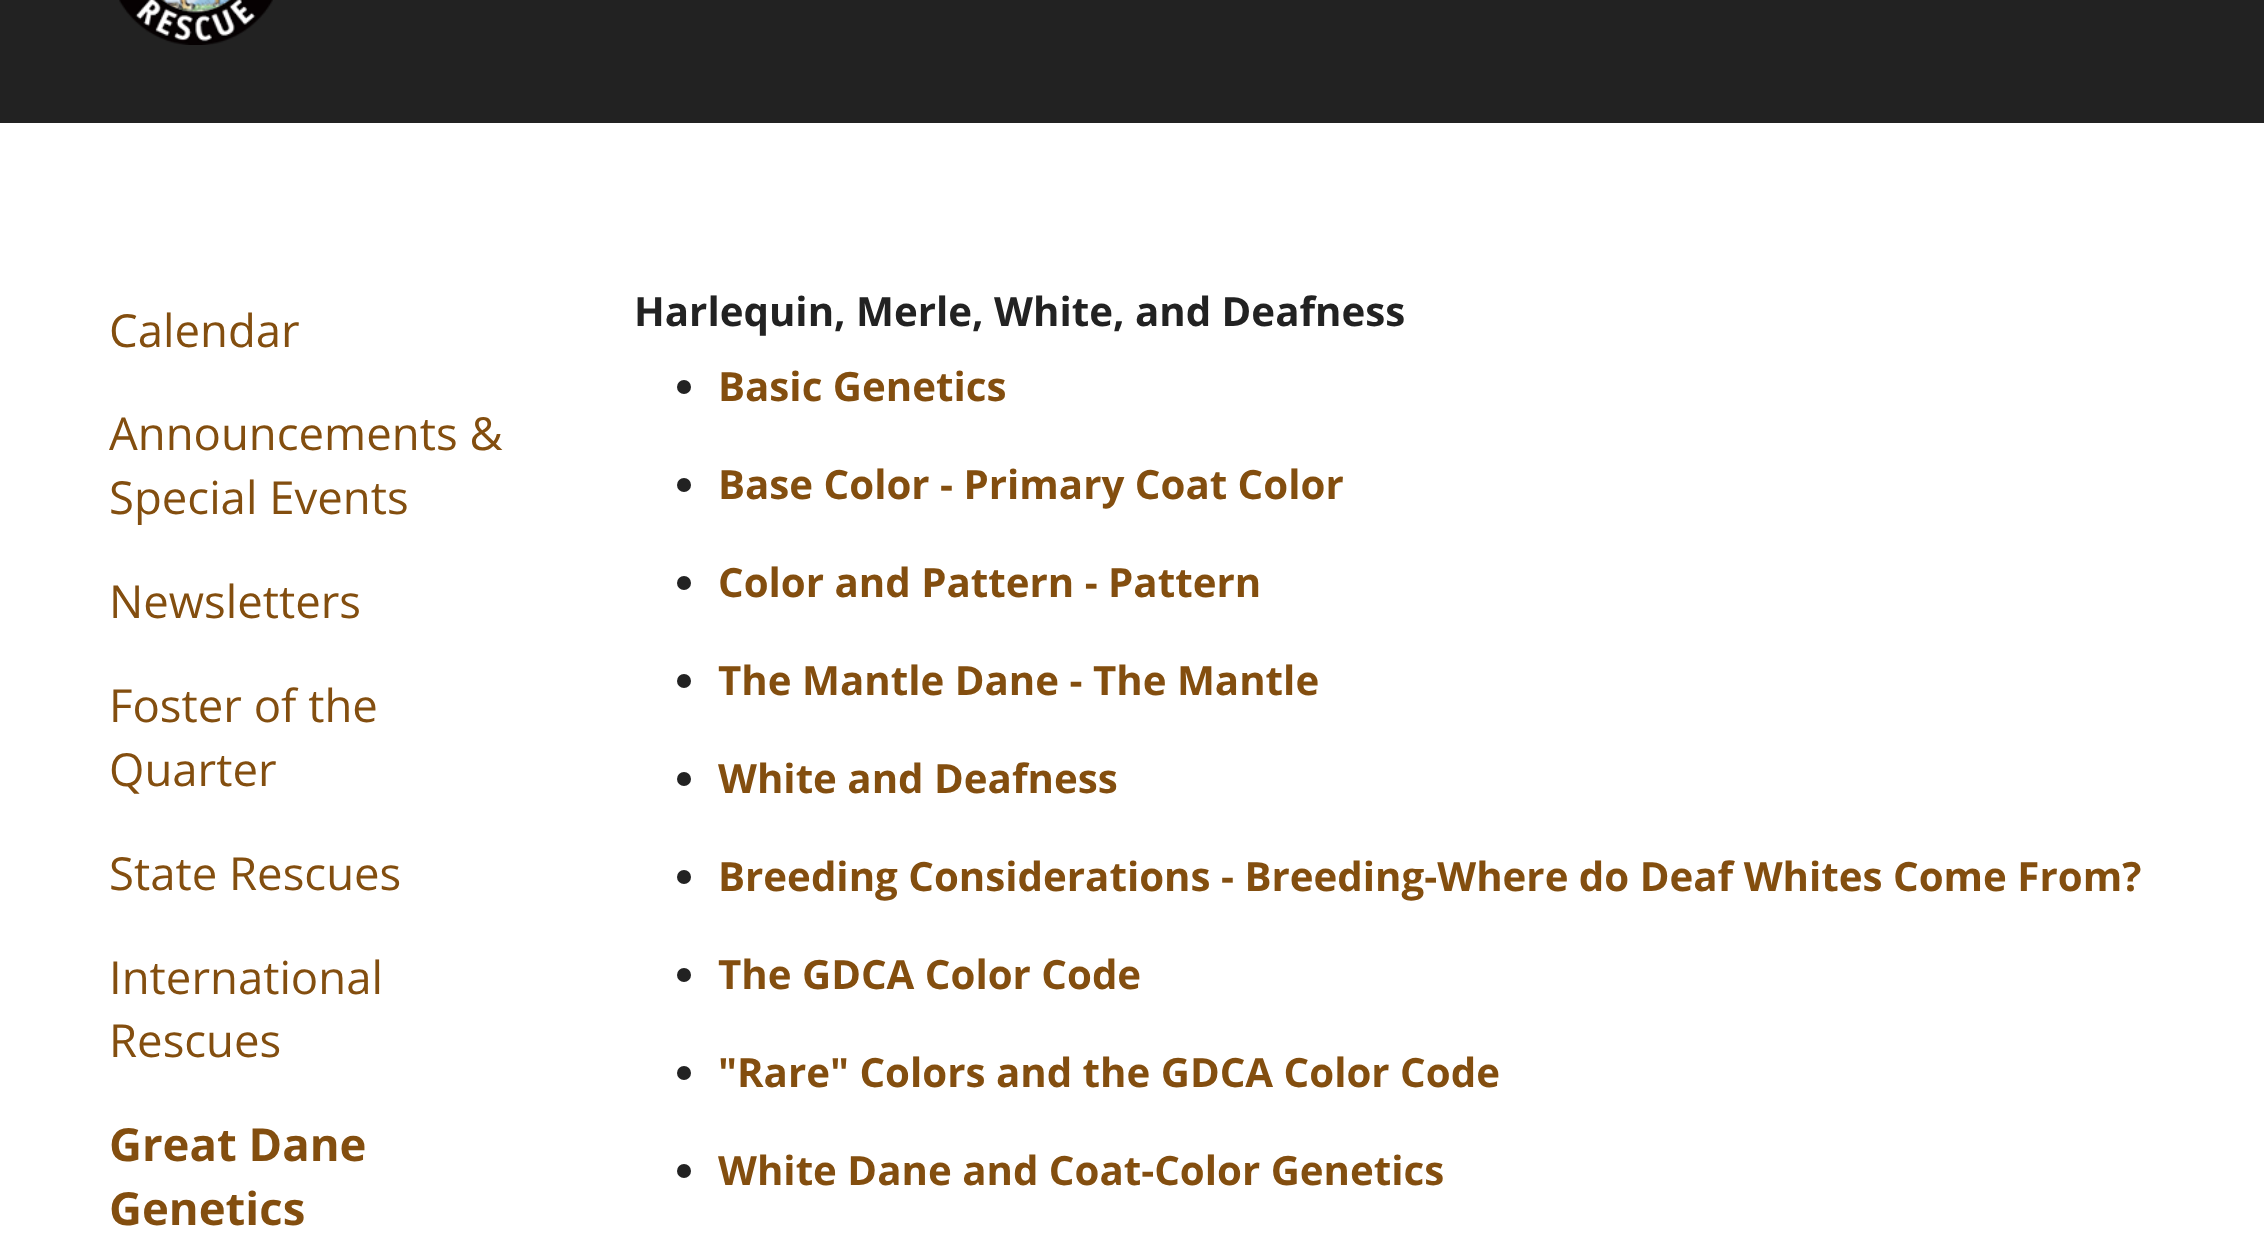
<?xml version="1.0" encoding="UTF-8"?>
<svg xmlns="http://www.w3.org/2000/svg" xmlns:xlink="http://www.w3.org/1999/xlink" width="2264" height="1236">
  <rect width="100%" height="100%" fill="#ffffff" />
  <rect width="2264" height="123" fill="#222222" />
  <image x="119" y="0" width="154" height="45" xlink:href="image1.png" />
  <circle cx="684" cy="387" r="7" fill="#222222" />
  <circle cx="684" cy="485" r="7" fill="#222222" />
  <circle cx="684" cy="583" r="7" fill="#222222" />
  <circle cx="684" cy="681" r="7" fill="#222222" />
  <circle cx="684" cy="779" r="7" fill="#222222" />
  <circle cx="684" cy="877" r="7" fill="#222222" />
  <circle cx="684" cy="975" r="7" fill="#222222" />
  <circle cx="684" cy="1073" r="7" fill="#222222" />
  <circle cx="684" cy="1171" r="7" fill="#222222" />
  <text x="109" y="347" style="font-family: Open Sans; font-size: 45.5px; fill: #834e0f">Calendar</text>
  <text x="109" y="450" style="font-family: Open Sans; font-size: 45.5px; fill: #834e0f">Announcements &amp;</text>
  <text x="109" y="514" style="font-family: Open Sans; font-size: 45.5px; fill: #834e0f">Special Events</text>
  <text x="109" y="618" style="font-family: Open Sans; font-size: 45.5px; fill: #834e0f">Newsletters</text>
  <text x="109" y="722" style="font-family: Open Sans; font-size: 45.5px; fill: #834e0f">Foster of the</text>
  <text x="109" y="786" style="font-family: Open Sans; font-size: 45.5px; fill: #834e0f">Quarter</text>
  <text x="109" y="890" style="font-family: Open Sans; font-size: 45.5px; fill: #834e0f">State Rescues</text>
  <text x="109" y="994" style="font-family: Open Sans; font-size: 45.5px; fill: #834e0f">International</text>
  <text x="109" y="1057" style="font-family: Open Sans; font-size: 45.5px; fill: #834e0f">Rescues</text>
  <text x="109" y="1161" style="font-family: Open Sans; font-size: 45.5px; font-weight: bold; fill: #834e0f">Great Dane</text>
  <text x="109" y="1225" style="font-family: Open Sans; font-size: 45.5px; font-weight: bold; fill: #834e0f">Genetics</text>
  <text x="634" y="326" style="font-family: Open Sans; font-size: 40.25px; font-weight: bold; fill: #222222">Harlequin, Merle, White, and Deafness</text>
  <text x="718" y="401" style="font-family: Open Sans; font-size: 40.25px; font-weight: bold; fill: #834e0f">Basic Genetics</text>
  <text x="718" y="499" style="font-family: Open Sans; font-size: 40.25px; font-weight: bold; fill: #834e0f">Base Color - Primary Coat Color</text>
  <text x="718" y="597" style="font-family: Open Sans; font-size: 40.25px; font-weight: bold; fill: #834e0f">Color and Pattern - Pattern</text>
  <text x="718" y="695" style="font-family: Open Sans; font-size: 40.25px; font-weight: bold; fill: #834e0f">The Mantle Dane - The Mantle</text>
  <text x="718" y="793" style="font-family: Open Sans; font-size: 40.25px; font-weight: bold; fill: #834e0f">White and Deafness</text>
  <text x="718" y="891" style="font-family: Open Sans; font-size: 40.25px; font-weight: bold; fill: #834e0f">Breeding Considerations - Breeding-Where do Deaf Whites Come From?</text>
  <text x="718" y="989" style="font-family: Open Sans; font-size: 40.25px; font-weight: bold; fill: #834e0f">The GDCA Color Code</text>
  <text x="718" y="1087" style="font-family: Open Sans; font-size: 40.25px; font-weight: bold; fill: #834e0f">"Rare" Colors and the GDCA Color Code</text>
  <text x="718" y="1185" style="font-family: Open Sans; font-size: 40.25px; font-weight: bold; fill: #834e0f">White Dane and Coat-Color Genetics</text>
</svg>
